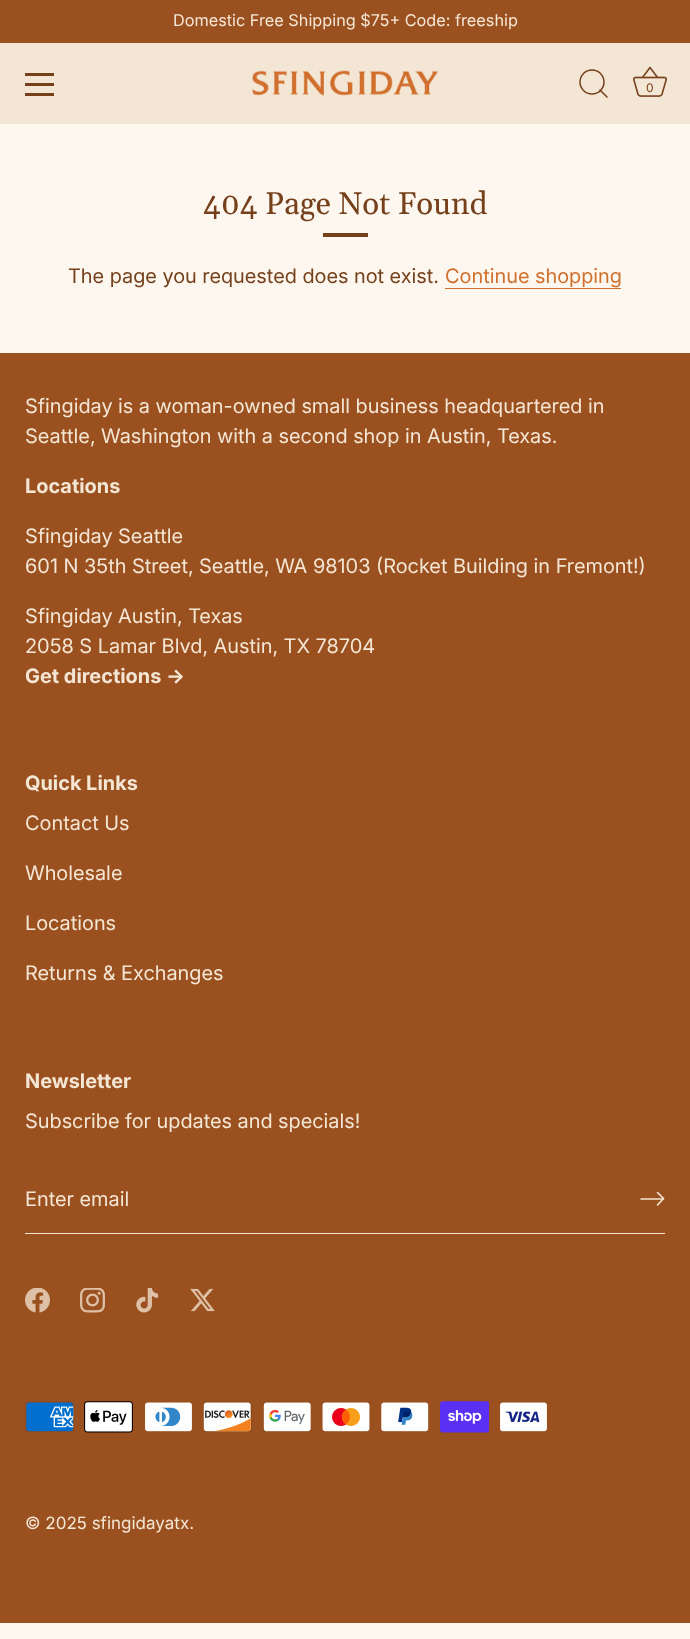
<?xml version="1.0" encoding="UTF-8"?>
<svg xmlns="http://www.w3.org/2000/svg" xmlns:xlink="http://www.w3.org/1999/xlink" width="690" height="1639">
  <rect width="100%" height="100%" fill="#fdf7ef" />
  <rect y="43" width="690" height="81" fill="#f4e6d5" />
  <rect width="690" height="43" fill="#9b511f" />
  <rect x="25" y="73" width="29" height="3" fill="#76401b" />
  <rect x="25" y="83" width="29" height="3" fill="#76401b" />
  <rect x="25" y="93" width="29" height="3" fill="#76401b" />
  <image x="252" y="70" width="186" height="26" xlink:href="image1.png" />
  <circle cx="592" cy="82" r="12" fill="none" stroke="#76401b" stroke-width="1.5" />
  <path d="M 607 97 l -7 -7" fill="none" stroke="#76401b" stroke-width="1.5" stroke-linecap="round" stroke-linejoin="round" />
  <image x="633" y="66" width="34" height="31" xlink:href="image2.png" />
  <rect x="323" y="233" width="45" height="4" fill="#76401b" />
  <rect x="445" y="288" width="176" height="1" fill="#d16f2c" />
  <rect y="353" width="690" height="1270" fill="#9b511f" />
  <rect x="25" y="1233" width="640" height="1" fill="#f4e6d5" />
  <path d="M 657.5 1205 l 6 -6.5 l -6 -6" fill="none" stroke="#f4e6d5" stroke-width="1.6" stroke-linecap="round" />
  <path d="M 663 1199 h -22" fill="none" stroke="#f4e6d5" stroke-width="1.6" stroke-linecap="round" stroke-linejoin="round" />
  <image x="25" y="1288" width="25" height="25" xlink:href="image3.png" />
  <image x="80" y="1288" width="25" height="25" xlink:href="image4.png" />
  <image x="136" y="1288" width="22" height="25" xlink:href="image5.png" />
  <image x="190" y="1288" width="25" height="24" xlink:href="image6.png" />
  <image x="25" y="1401" width="50" height="32" xlink:href="image7.png" />
  <image x="84" y="1401" width="49" height="32" xlink:href="image8.png" />
  <image x="145" y="1402" width="47" height="30" xlink:href="image9.png" />
  <image x="203" y="1401" width="49" height="32" xlink:href="image10.png" />
  <image x="263" y="1401" width="48" height="32" xlink:href="image11.png" />
  <image x="322" y="1402" width="48" height="30" xlink:href="image12.png" />
  <image x="381" y="1402" width="48" height="30" xlink:href="image13.png" />
  <image x="440" y="1401" width="49" height="32" xlink:href="image14.png" />
  <image x="500" y="1402" width="47" height="30" xlink:href="image15.png" />
  <text x="173" y="26" style="font-family: 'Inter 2'; font-size: 16.25px; fill: #f4e6d5">Domestic Free Shipping $75+ Code: freeship</text>
  <text x="646" y="92" style="font-family: 'Inter 2'; font-size: 12px; fill: #76401b">0</text>
  <text x="203" y="214" style="font-family: Gelasio; font-size: 31.25px; fill: #76401b">404 Page Not Found</text>
  <text x="68" y="283" style="font-family: Inter; font-size: 20px; fill: #76401b">The page you requested does not exist.</text>
  <text x="445" y="283" style="font-family: Inter; font-size: 20px; fill: #d16f2c">Continue shopping</text>
  <text x="25" y="413" style="font-family: Inter; font-size: 20px; fill: #f4e6d5">Sfingiday is a woman-owned small business headquartered in</text>
  <text x="25" y="443" style="font-family: Inter; font-size: 20px; fill: #f4e6d5">Seattle, Washington with a second shop in Austin, Texas.</text>
  <text x="25" y="493" style="font-family: Inter; font-size: 20px; font-weight: bold; fill: #f4e6d5">Locations</text>
  <text x="25" y="543" style="font-family: Inter; font-size: 20px; fill: #f4e6d5">Sfingiday Seattle</text>
  <text x="25" y="573" style="font-family: Inter; font-size: 20px; fill: #f4e6d5">601 N 35th Street, Seattle, WA 98103 (Rocket Building in Fremont!)</text>
  <text x="25" y="623" style="font-family: Inter; font-size: 20px; fill: #f4e6d5">Sfingiday Austin, Texas</text>
  <text x="25" y="653" style="font-family: Inter; font-size: 20px; fill: #f4e6d5">2058 S Lamar Blvd, Austin, TX 78704</text>
  <text x="25" y="683" style="font-family: Inter; font-size: 20px; font-weight: bold; fill: #f4e6d5">Get directions -&gt;</text>
  <text x="25" y="790" style="font-family: Inter; font-size: 20px; font-weight: bold; fill: #f4e6d5">Quick Links</text>
  <text x="25" y="830" style="font-family: Inter; font-size: 20px; fill: #f4e6d5">Contact Us</text>
  <text x="25" y="880" style="font-family: Inter; font-size: 20px; fill: #f4e6d5">Wholesale</text>
  <text x="25" y="930" style="font-family: Inter; font-size: 20px; fill: #f4e6d5">Locations</text>
  <text x="25" y="980" style="font-family: Inter; font-size: 20px; fill: #f4e6d5">Returns &amp; Exchanges</text>
  <text x="25" y="1088" style="font-family: Inter; font-size: 20px; font-weight: bold; fill: #f4e6d5">Newsletter</text>
  <text x="25" y="1128" style="font-family: Inter; font-size: 20px; fill: #f4e6d5">Subscribe for updates and specials!</text>
  <text x="25" y="1206" style="font-family: Inter; font-size: 20px; fill: #f4e6d5">Enter email</text>
  <text x="25" y="1529" style="font-family: 'Inter 2'; font-size: 17px; fill: #f4e6d5">© 2025 sfingidayatx.</text>
</svg>
